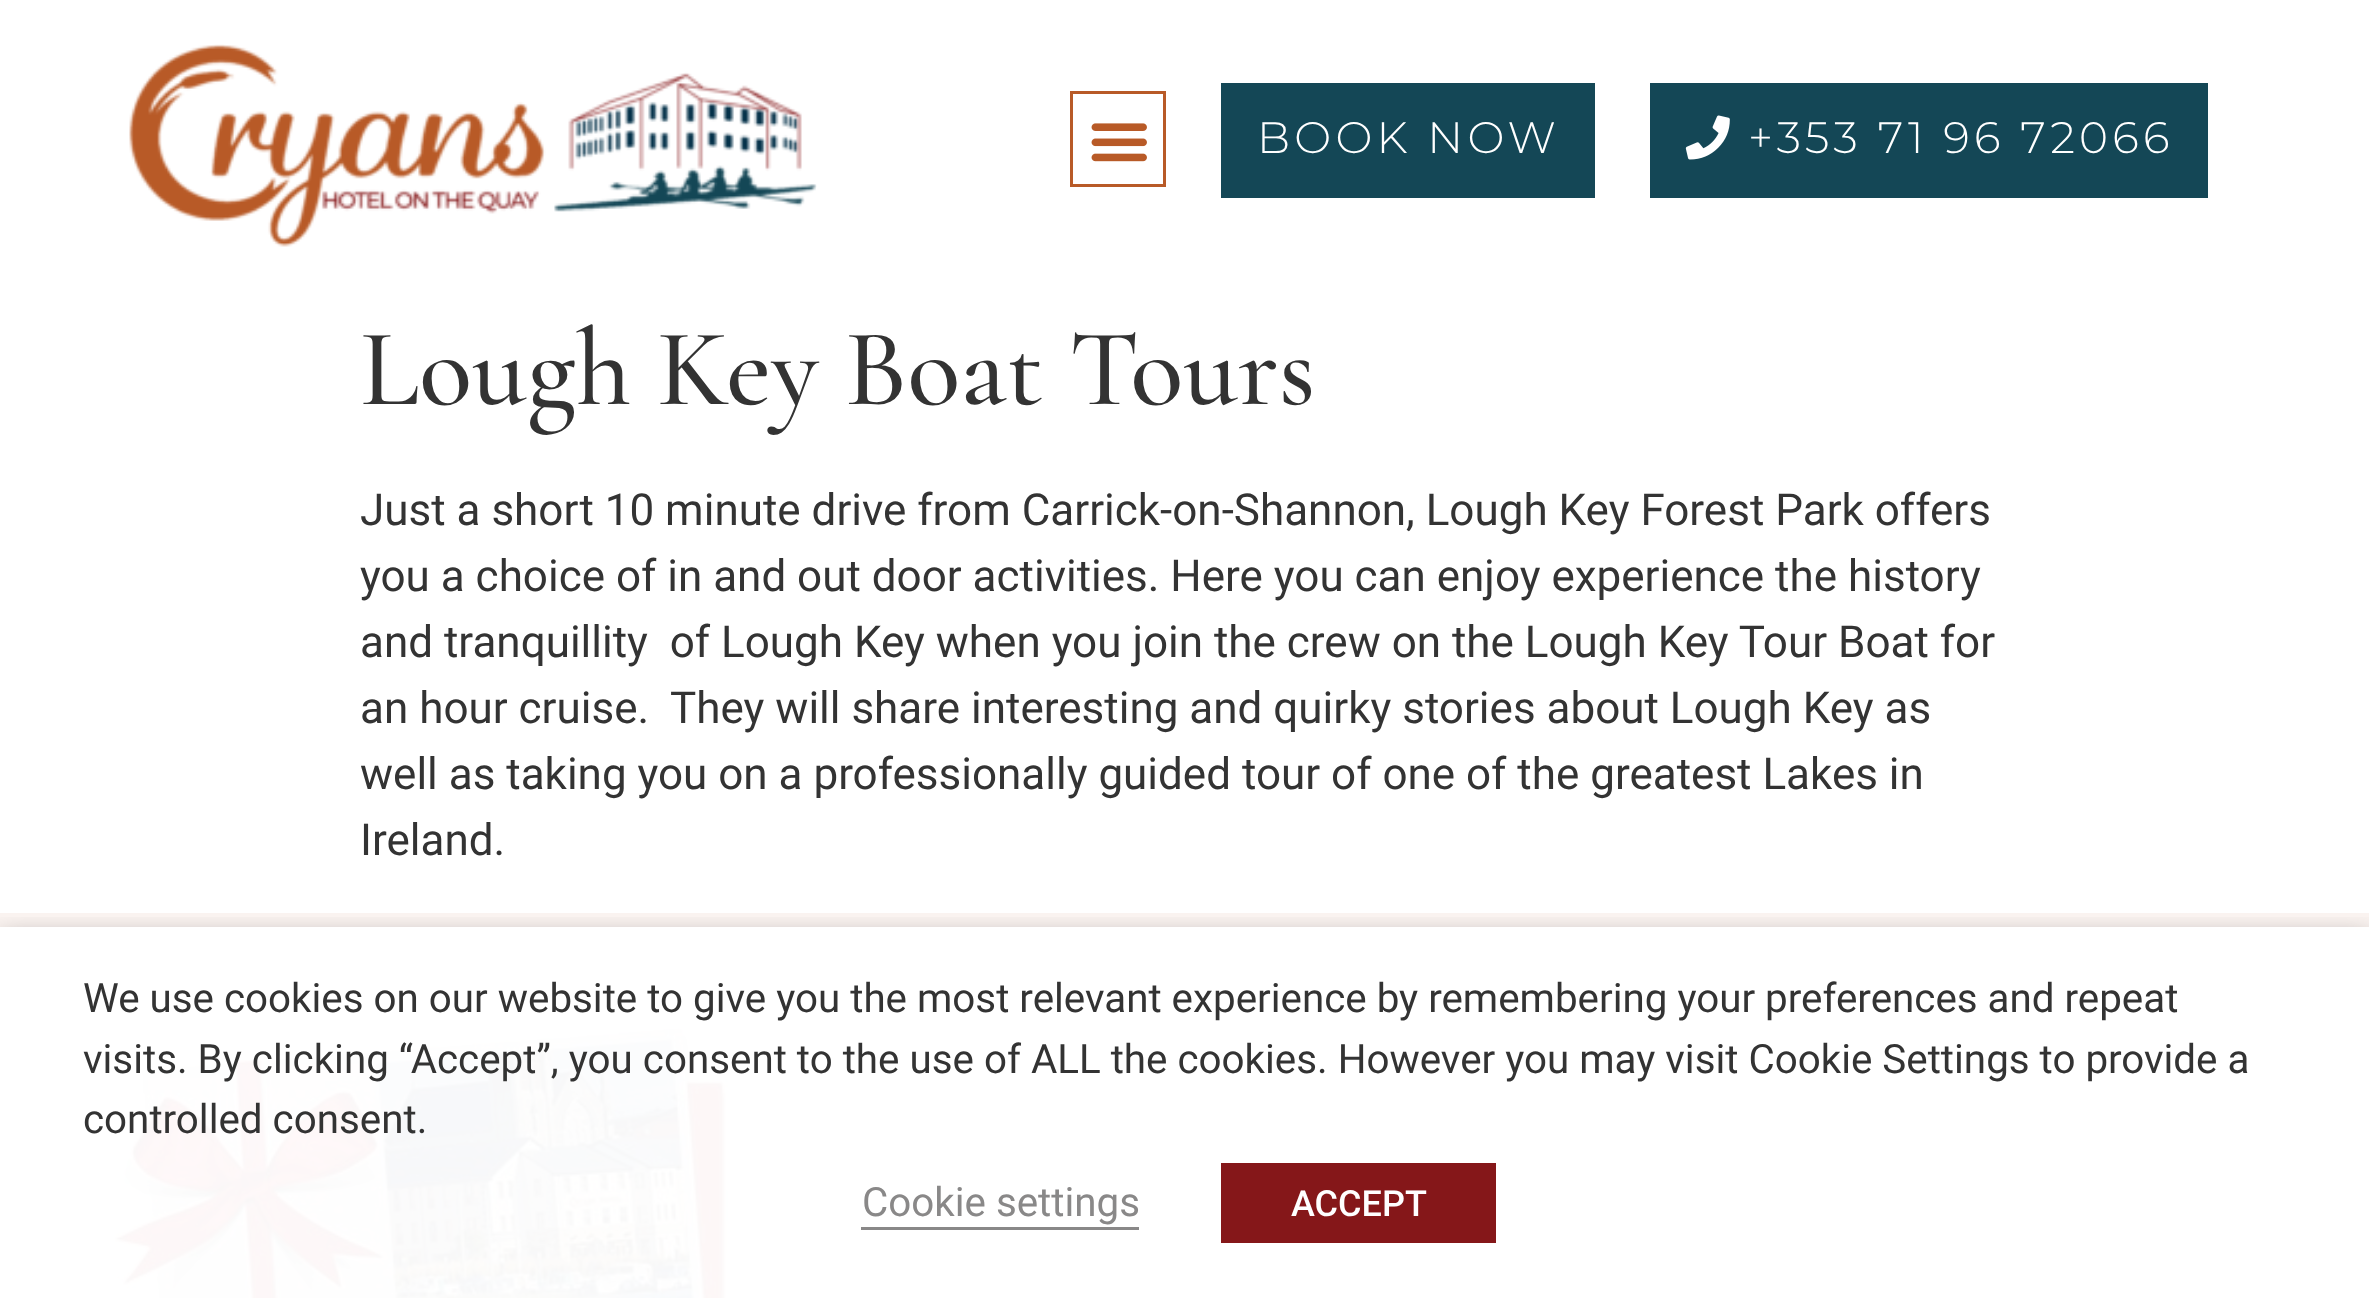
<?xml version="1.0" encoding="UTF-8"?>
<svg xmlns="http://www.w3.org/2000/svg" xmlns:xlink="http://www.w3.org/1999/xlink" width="2369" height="1298">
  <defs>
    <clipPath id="clip1"><rect x="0" y="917" width="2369" height="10" /></clipPath>
  </defs>
  <rect width="100%" height="100%" fill="#ffffff" />
  <image x="129" y="44" width="688" height="203" xlink:href="image1.png" />
  <rect x="1071.5" y="92.5" width="93" height="93" fill="none" stroke="#b85a27" stroke-width="3" />
  <image x="1091" y="123" width="56" height="39" xlink:href="image2.png" />
  <rect x="1221" y="83" width="374" height="115" fill="#144756" />
  <rect x="1650" y="83" width="558" height="115" fill="#144756" />
  <image x="1685" y="115" width="45" height="45" xlink:href="image3.png" />
  <rect y="913" width="2369" height="14" fill="#faf3f0" />
  <image x="82" y="995" width="699" height="303" xlink:href="image4.png" />
  <g clip-path="url(#clip1)">
    <rect y="941" width="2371" height="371" fill="#000000" fill-opacity="0.5" filter="blur(14px)" />
  </g>
  <rect x="861" y="1227" width="278" height="3" fill="#898888" />
  <rect x="1221" y="1163" width="275" height="80" fill="#851719" />
  <text x="1257" y="153" style="font-family: Montserrat; font-size: 44px; font-weight: 300; letter-spacing: 4.25px; fill: #ffffff">BOOK NOW</text>
  <text x="1748" y="153" style="font-family: Montserrat; font-size: 44px; font-weight: 300; letter-spacing: 4.25px; fill: #ffffff">+353 71 96 72066</text>
  <text x="360" y="404" style="font-family: Cormorant Garamond; font-size: 110px; font-weight: 500; fill: #333333">Lough Key Boat Tours</text>
  <text x="360" y="525" style="font-family: Roboto; font-size: 44px; fill: #333333">Just a short 10 minute drive from Carrick-on-Shannon, Lough Key Forest Park offers</text>
  <text x="360" y="591" style="font-family: Roboto; font-size: 44px; fill: #333333">you a choice of in and out door activities. Here you can enjoy experience the history</text>
  <text x="360" y="657" style="font-family: Roboto; font-size: 44px; fill: #333333" xml:space="preserve">and tranquillity  of Lough Key when you join the crew on the Lough Key Tour Boat for</text>
  <text x="360" y="723" style="font-family: Roboto; font-size: 44px; fill: #333333" xml:space="preserve">an hour cruise.  They will share interesting and quirky stories about Lough Key as</text>
  <text x="360" y="789" style="font-family: Roboto; font-size: 44px; fill: #333333">well as taking you on a professionally guided tour of one of the greatest Lakes in</text>
  <text x="360" y="855" style="font-family: Roboto; font-size: 44px; fill: #333333">Ireland.</text>
  <text x="83" y="1012" style="font-family: Roboto; font-size: 40.33px; fill: #333333">We use cookies on our website to give you the most relevant experience by remembering your preferences and repeat</text>
  <text x="83" y="1073" style="font-family: Roboto; font-size: 40.33px; fill: #333333">visits. By clicking “Accept”, you consent to the use of ALL the cookies. However you may visit Cookie Settings to provide a</text>
  <text x="83" y="1133" style="font-family: Roboto; font-size: 40.33px; fill: #333333">controlled consent.</text>
  <text x="862" y="1216" style="font-family: Roboto; font-size: 40.33px; fill: #898888">Cookie settings</text>
  <text x="1291" y="1216" style="font-family: Roboto; font-size: 36px; font-weight: 500; fill: #ffffff">ACCEPT</text>
</svg>
